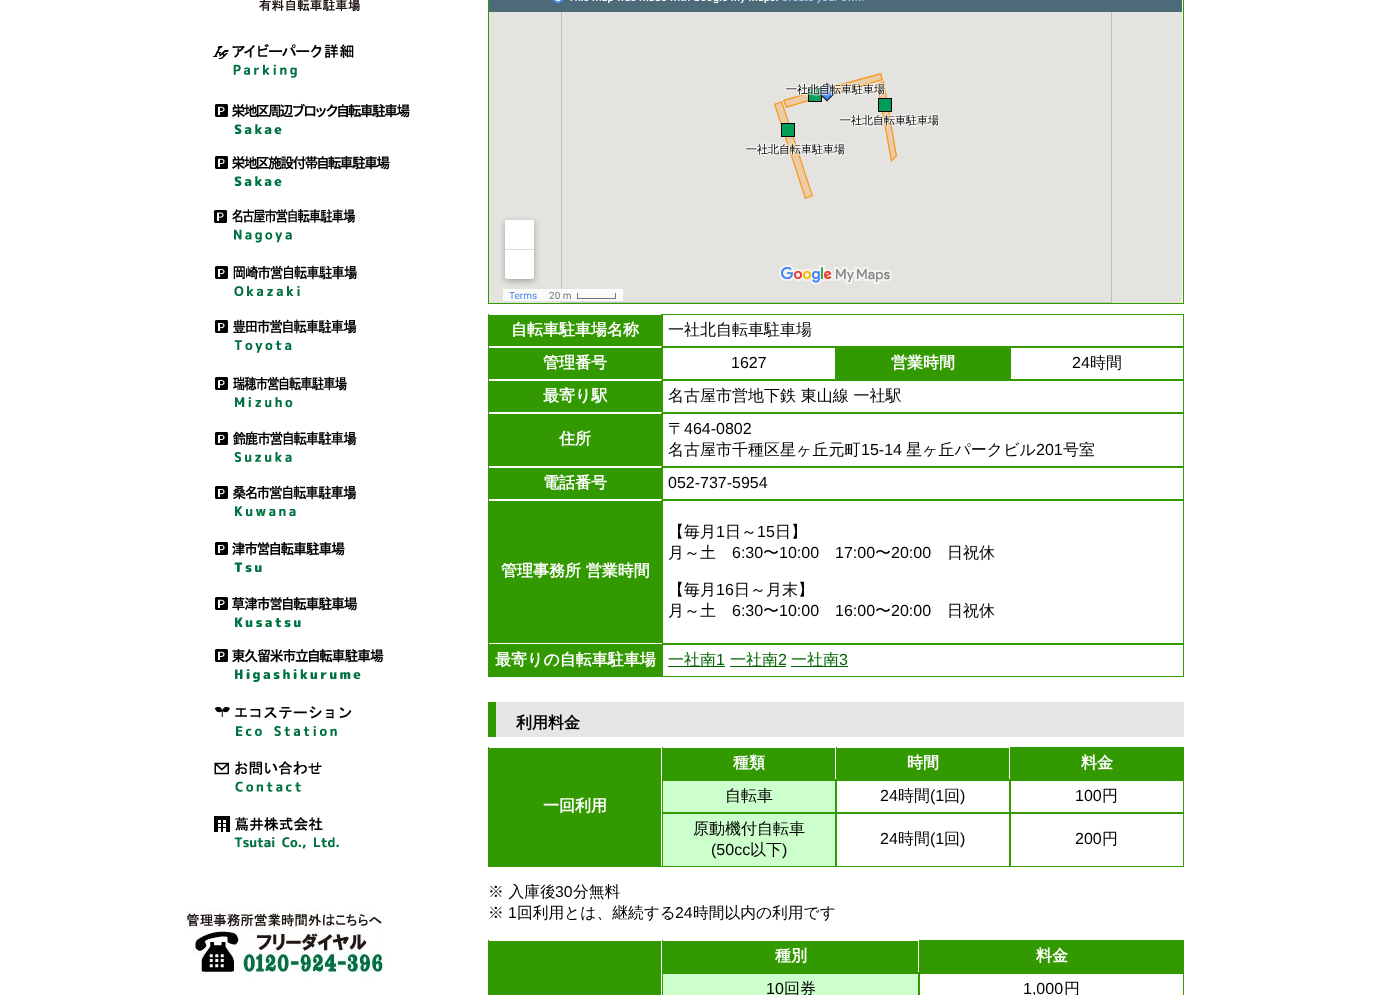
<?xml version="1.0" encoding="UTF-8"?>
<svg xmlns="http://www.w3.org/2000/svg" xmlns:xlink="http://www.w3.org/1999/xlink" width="1394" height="995">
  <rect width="100%" height="100%" fill="#ffffff" />
  <image x="259" y="0" width="101" height="12" xlink:href="image1.png" />
  <image x="212" y="44" width="142" height="34" xlink:href="image2.png" />
  <image x="214" y="103" width="196" height="32" xlink:href="image3.png" />
  <image x="214" y="156" width="176" height="31" xlink:href="image4.png" />
  <image x="213" y="209" width="142" height="34" xlink:href="image5.png" />
  <image x="214" y="265" width="143" height="31" xlink:href="image6.png" />
  <image x="214" y="319" width="143" height="34" xlink:href="image7.png" />
  <image x="214" y="376" width="133" height="32" xlink:href="image8.png" />
  <image x="214" y="431" width="143" height="31" xlink:href="image9.png" />
  <image x="214" y="485" width="142" height="32" xlink:href="image10.png" />
  <image x="214" y="542" width="131" height="31" xlink:href="image11.png" />
  <image x="214" y="597" width="143" height="31" xlink:href="image12.png" />
  <image x="214" y="649" width="170" height="33" xlink:href="image13.png" />
  <image x="214" y="706" width="138" height="30" xlink:href="image14.png" />
  <image x="214" y="761" width="108" height="31" xlink:href="image15.png" />
  <image x="214" y="816" width="125" height="33" xlink:href="image16.png" />
  <image x="185" y="907" width="200" height="70" xlink:href="image17.png" />
  <rect x="488.5" y="-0.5" width="695" height="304" fill="none" stroke="#339900" />
  <image x="489" y="0" width="693" height="303" xlink:href="image18.png" />
  <rect x="489" y="315" width="172" height="31" fill="#339900" />
  <rect x="661" y="314" width="1" height="330" fill="#339900" />
  <rect x="661" y="346" width="1" height="1" fill="#ffffff" />
  <rect x="488" y="314" width="1" height="330" fill="#339900" />
  <rect x="662.5" y="314.5" width="521" height="32" fill="none" stroke="#339900" />
  <rect x="489" y="348" width="172" height="31" fill="#339900" />
  <rect x="661" y="379" width="1" height="1" fill="#ffffff" />
  <rect x="662.5" y="347.5" width="173" height="32" fill="none" stroke="#339900" />
  <rect x="836" y="347" width="174" height="33" fill="#339900" />
  <rect x="1010.5" y="347.5" width="173" height="32" fill="none" stroke="#339900" />
  <rect x="489" y="381" width="172" height="31" fill="#339900" />
  <rect x="661" y="412" width="1" height="1" fill="#ffffff" />
  <rect x="662.5" y="380.5" width="521" height="32" fill="none" stroke="#339900" />
  <rect x="489" y="414" width="172" height="52" fill="#339900" />
  <rect x="661" y="466" width="1" height="1" fill="#ffffff" />
  <rect x="662.5" y="413.5" width="521" height="53" fill="none" stroke="#339900" />
  <rect x="489" y="468" width="172" height="31" fill="#339900" />
  <rect x="661" y="499" width="1" height="1" fill="#ffffff" />
  <rect x="662.5" y="467.5" width="521" height="32" fill="none" stroke="#339900" />
  <rect x="489" y="501" width="172" height="142" fill="#339900" />
  <rect x="661" y="643" width="1" height="1" fill="#ffffff" />
  <rect x="662.5" y="500.5" width="521" height="143" fill="none" stroke="#339900" />
  <rect x="488" y="644" width="174" height="33" fill="#339900" />
  <rect x="662.5" y="644.5" width="521" height="32" fill="none" stroke="#339900" />
  <rect x="668" y="666" width="57" height="1" fill="#006600" />
  <rect x="730" y="666" width="56" height="1" fill="#006600" />
  <rect x="791" y="666" width="57" height="1" fill="#006600" />
  <rect x="496" y="702" width="688" height="35" fill="#e6e6e6" />
  <rect x="488" y="702" width="8" height="35" fill="#339900" />
  <rect x="663" y="748" width="172" height="31" fill="#339900" />
  <rect x="662" y="779" width="348" height="1" fill="#339900" />
  <rect x="662" y="747" width="1" height="33" fill="#339900" />
  <rect x="837" y="748" width="172" height="31" fill="#339900" />
  <rect x="836" y="747" width="1" height="33" fill="#339900" />
  <rect x="1010" y="747" width="174" height="33" fill="#339900" />
  <rect x="489" y="748" width="172" height="118" fill="#339900" />
  <rect x="488" y="866" width="174" height="1" fill="#339900" />
  <rect x="488" y="747" width="1" height="120" fill="#339900" />
  <rect x="662.5" y="780.5" width="173" height="32" fill="#ccffcc" stroke="#339900" />
  <rect x="836.5" y="780.5" width="173" height="32" fill="none" stroke="#339900" />
  <rect x="1010.5" y="780.5" width="173" height="32" fill="none" stroke="#339900" />
  <rect x="662.5" y="813.5" width="173" height="53" fill="#ccffcc" stroke="#339900" />
  <rect x="836.5" y="813.5" width="173" height="53" fill="none" stroke="#339900" />
  <rect x="1010.5" y="813.5" width="173" height="53" fill="none" stroke="#339900" />
  <rect x="489" y="941" width="172" height="54" fill="#339900" />
  <rect x="488" y="940" width="1" height="55" fill="#339900" />
  <rect x="663" y="941" width="255" height="31" fill="#339900" />
  <rect x="662" y="972" width="257" height="1" fill="#339900" />
  <rect x="662" y="940" width="1" height="33" fill="#339900" />
  <rect x="919" y="940" width="265" height="33" fill="#339900" />
  <rect x="662.5" y="973.5" width="256" height="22" fill="#ccffcc" stroke="#339900" />
  <rect x="919.5" y="973.5" width="264" height="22" fill="none" stroke="#339900" />
  <text x="511" y="335" style="font-family: WenQuanYi Zen Hei; font-size: 16px; font-weight: bold; fill: #ffffff">自転車駐車場名称</text>
  <text x="668" y="335" style="font-family: WenQuanYi Zen Hei; font-size: 16px; font-weight: 500; fill: #000000">一社北自転車駐車場</text>
  <text x="543" y="368" style="font-family: WenQuanYi Zen Hei; font-size: 16px; font-weight: bold; fill: #ffffff">管理番号</text>
  <text x="731" y="368" style="font-family: Liberation Sans; font-size: 16px; fill: #000000">1627</text>
  <text x="891" y="368" style="font-family: WenQuanYi Zen Hei; font-size: 16px; font-weight: bold; fill: #ffffff">営業時間</text>
  <text x="1072" y="368" style="font-family: Liberation Sans; font-size: 16px; fill: #000000">24</text>
  <text x="1090" y="368" style="font-family: WenQuanYi Zen Hei; font-size: 16px; font-weight: 500; fill: #000000">時間</text>
  <text x="543" y="401" style="font-family: WenQuanYi Zen Hei; font-size: 16px; font-weight: bold; fill: #ffffff">最寄り駅</text>
  <text x="668" y="401" style="font-family: WenQuanYi Zen Hei; font-size: 16px; font-weight: 500; fill: #000000">名古屋市営地下鉄 東山線 一社駅</text>
  <text x="559" y="444" style="font-family: WenQuanYi Zen Hei; font-size: 16px; font-weight: bold; fill: #ffffff">住所</text>
  <text x="668" y="434" style="font-family: WenQuanYi Zen Hei; font-size: 16px; font-weight: 500; fill: #000000">〒</text>
  <text x="684" y="434" style="font-family: Liberation Sans; font-size: 16px; fill: #000000">464-0802</text>
  <text x="668" y="455" style="font-family: WenQuanYi Zen Hei; font-size: 16px; font-weight: 500; fill: #000000">名古屋市千種区星ヶ丘元町</text>
  <text x="861" y="455" style="font-family: Liberation Sans; font-size: 16px; fill: #000000">15-14</text>
  <text x="906" y="455" style="font-family: WenQuanYi Zen Hei; font-size: 16px; font-weight: 500; fill: #000000">星ヶ丘パークビル</text>
  <text x="1036" y="455" style="font-family: Liberation Sans; font-size: 16px; fill: #000000">201</text>
  <text x="1063" y="455" style="font-family: WenQuanYi Zen Hei; font-size: 16px; font-weight: 500; fill: #000000">号室</text>
  <text x="543" y="488" style="font-family: WenQuanYi Zen Hei; font-size: 16px; font-weight: bold; fill: #ffffff">電話番号</text>
  <text x="668" y="488" style="font-family: Liberation Sans; font-size: 16px; fill: #000000">052-737-5954</text>
  <text x="501" y="576" style="font-family: WenQuanYi Zen Hei; font-size: 16px; font-weight: bold; fill: #ffffff">管理事務所 営業時間</text>
  <text x="668" y="537" style="font-family: WenQuanYi Zen Hei; font-size: 16px; font-weight: 500; fill: #000000">【毎月</text>
  <text x="716" y="537" style="font-family: Liberation Sans; font-size: 16px; fill: #000000">1</text>
  <text x="725" y="537" style="font-family: WenQuanYi Zen Hei; font-size: 16px; font-weight: 500; fill: #000000">日～</text>
  <text x="757" y="537" style="font-family: Liberation Sans; font-size: 16px; fill: #000000">15</text>
  <text x="775" y="537" style="font-family: WenQuanYi Zen Hei; font-size: 16px; font-weight: 500; fill: #000000">日】</text>
  <text x="668" y="558" style="font-family: WenQuanYi Zen Hei; font-size: 16px; font-weight: 500; fill: #000000">月～土</text>
  <text x="732" y="558" style="font-family: Liberation Sans; font-size: 16px; fill: #000000">6:30</text>
  <text x="763" y="558" style="font-family: WenQuanYi Zen Hei; font-size: 16px; font-weight: 500; fill: #000000">〜</text>
  <text x="779" y="558" style="font-family: Liberation Sans; font-size: 16px; fill: #000000">10:00</text>
  <text x="835" y="558" style="font-family: Liberation Sans; font-size: 16px; fill: #000000">17:00</text>
  <text x="875" y="558" style="font-family: WenQuanYi Zen Hei; font-size: 16px; font-weight: 500; fill: #000000">〜</text>
  <text x="891" y="558" style="font-family: Liberation Sans; font-size: 16px; fill: #000000">20:00</text>
  <text x="947" y="558" style="font-family: WenQuanYi Zen Hei; font-size: 16px; font-weight: 500; fill: #000000">日祝休</text>
  <text x="668" y="595" style="font-family: WenQuanYi Zen Hei; font-size: 16px; font-weight: 500; fill: #000000">【毎月</text>
  <text x="716" y="595" style="font-family: Liberation Sans; font-size: 16px; fill: #000000">16</text>
  <text x="734" y="595" style="font-family: WenQuanYi Zen Hei; font-size: 16px; font-weight: 500; fill: #000000">日～月末】</text>
  <text x="668" y="616" style="font-family: WenQuanYi Zen Hei; font-size: 16px; font-weight: 500; fill: #000000">月～土</text>
  <text x="732" y="616" style="font-family: Liberation Sans; font-size: 16px; fill: #000000">6:30</text>
  <text x="763" y="616" style="font-family: WenQuanYi Zen Hei; font-size: 16px; font-weight: 500; fill: #000000">〜</text>
  <text x="779" y="616" style="font-family: Liberation Sans; font-size: 16px; fill: #000000">10:00</text>
  <text x="835" y="616" style="font-family: Liberation Sans; font-size: 16px; fill: #000000">16:00</text>
  <text x="875" y="616" style="font-family: WenQuanYi Zen Hei; font-size: 16px; font-weight: 500; fill: #000000">〜</text>
  <text x="891" y="616" style="font-family: Liberation Sans; font-size: 16px; fill: #000000">20:00</text>
  <text x="947" y="616" style="font-family: WenQuanYi Zen Hei; font-size: 16px; font-weight: 500; fill: #000000">日祝休</text>
  <text x="495" y="665" style="font-family: WenQuanYi Zen Hei; font-size: 16px; font-weight: bold; fill: #ffffff">最寄りの自転車駐車場</text>
  <text x="668" y="665" style="font-family: WenQuanYi Zen Hei; font-size: 16px; font-weight: 500; fill: #006600">一社南</text>
  <text x="716" y="665" style="font-family: Liberation Sans; font-size: 16px; fill: #006600">1</text>
  <text x="730" y="665" style="font-family: WenQuanYi Zen Hei; font-size: 16px; font-weight: 500; fill: #006600">一社南</text>
  <text x="778" y="665" style="font-family: Liberation Sans; font-size: 16px; fill: #006600">2</text>
  <text x="791" y="665" style="font-family: WenQuanYi Zen Hei; font-size: 16px; font-weight: 500; fill: #006600">一社南</text>
  <text x="839" y="665" style="font-family: Liberation Sans; font-size: 16px; fill: #006600">3</text>
  <text x="516" y="728" style="font-family: WenQuanYi Zen Hei; font-size: 16px; font-weight: bold; fill: #000000">利用料金</text>
  <text x="733" y="768" style="font-family: WenQuanYi Zen Hei; font-size: 16px; font-weight: bold; fill: #ffffff">種類</text>
  <text x="907" y="768" style="font-family: WenQuanYi Zen Hei; font-size: 16px; font-weight: bold; fill: #ffffff">時間</text>
  <text x="1081" y="768" style="font-family: WenQuanYi Zen Hei; font-size: 16px; font-weight: bold; fill: #ffffff">料金</text>
  <text x="543" y="811" style="font-family: WenQuanYi Zen Hei; font-size: 16px; font-weight: bold; fill: #ffffff">一回利用</text>
  <text x="725" y="801" style="font-family: WenQuanYi Zen Hei; font-size: 16px; font-weight: 500; fill: #000000">自転車</text>
  <text x="880" y="801" style="font-family: Liberation Sans; font-size: 16px; fill: #000000">24</text>
  <text x="898" y="801" style="font-family: WenQuanYi Zen Hei; font-size: 16px; font-weight: 500; fill: #000000">時間</text>
  <text x="930" y="801" style="font-family: Liberation Sans; font-size: 16px; fill: #000000">(1</text>
  <text x="944" y="801" style="font-family: WenQuanYi Zen Hei; font-size: 16px; font-weight: 500; fill: #000000">回</text>
  <text x="960" y="801" style="font-family: Liberation Sans; font-size: 16px; fill: #000000">)</text>
  <text x="1075" y="801" style="font-family: Liberation Sans; font-size: 16px; fill: #000000">100</text>
  <text x="1102" y="801" style="font-family: WenQuanYi Zen Hei; font-size: 16px; font-weight: 500; fill: #000000">円</text>
  <text x="693" y="834" style="font-family: WenQuanYi Zen Hei; font-size: 16px; font-weight: 500; fill: #000000">原動機付自転車</text>
  <text x="711" y="855" style="font-family: Liberation Sans; font-size: 16px; fill: #000000">(50cc</text>
  <text x="750" y="855" style="font-family: WenQuanYi Zen Hei; font-size: 16px; font-weight: 500; fill: #000000">以下</text>
  <text x="782" y="855" style="font-family: Liberation Sans; font-size: 16px; fill: #000000">)</text>
  <text x="880" y="844" style="font-family: Liberation Sans; font-size: 16px; fill: #000000">24</text>
  <text x="898" y="844" style="font-family: WenQuanYi Zen Hei; font-size: 16px; font-weight: 500; fill: #000000">時間</text>
  <text x="930" y="844" style="font-family: Liberation Sans; font-size: 16px; fill: #000000">(1</text>
  <text x="944" y="844" style="font-family: WenQuanYi Zen Hei; font-size: 16px; font-weight: 500; fill: #000000">回</text>
  <text x="960" y="844" style="font-family: Liberation Sans; font-size: 16px; fill: #000000">)</text>
  <text x="1075" y="844" style="font-family: Liberation Sans; font-size: 16px; fill: #000000">200</text>
  <text x="1102" y="844" style="font-family: WenQuanYi Zen Hei; font-size: 16px; font-weight: 500; fill: #000000">円</text>
  <text x="488" y="897" style="font-family: WenQuanYi Zen Hei; font-size: 15.75px; font-weight: 500; fill: #000000">※ 入庫後</text>
  <text x="555" y="897" style="font-family: Liberation Sans; font-size: 15.75px; fill: #000000">30</text>
  <text x="573" y="897" style="font-family: WenQuanYi Zen Hei; font-size: 15.75px; font-weight: 500; fill: #000000">分無料</text>
  <text x="488" y="918" style="font-family: WenQuanYi Zen Hei; font-size: 15.75px; font-weight: 500; fill: #000000">※</text>
  <text x="508" y="918" style="font-family: Liberation Sans; font-size: 15.75px; fill: #000000">1</text>
  <text x="517" y="918" style="font-family: WenQuanYi Zen Hei; font-size: 15.75px; font-weight: 500; fill: #000000">回利用とは、継続する</text>
  <text x="675" y="918" style="font-family: Liberation Sans; font-size: 15.75px; fill: #000000">24</text>
  <text x="693" y="918" style="font-family: WenQuanYi Zen Hei; font-size: 15.75px; font-weight: 500; fill: #000000">時間以内の利用です</text>
  <text x="775" y="961" style="font-family: WenQuanYi Zen Hei; font-size: 16px; font-weight: bold; fill: #ffffff">種別</text>
  <text x="1036" y="961" style="font-family: WenQuanYi Zen Hei; font-size: 16px; font-weight: bold; fill: #ffffff">料金</text>
  <text x="766" y="994" style="font-family: Liberation Sans; font-size: 16px; fill: #000000">10</text>
  <text x="784" y="994" style="font-family: WenQuanYi Zen Hei; font-size: 16px; font-weight: 500; fill: #000000">回券</text>
  <text x="1023" y="994" style="font-family: Liberation Sans; font-size: 16px; fill: #000000">1,000</text>
  <text x="1064" y="994" style="font-family: WenQuanYi Zen Hei; font-size: 16px; font-weight: 500; fill: #000000">円</text>
</svg>
